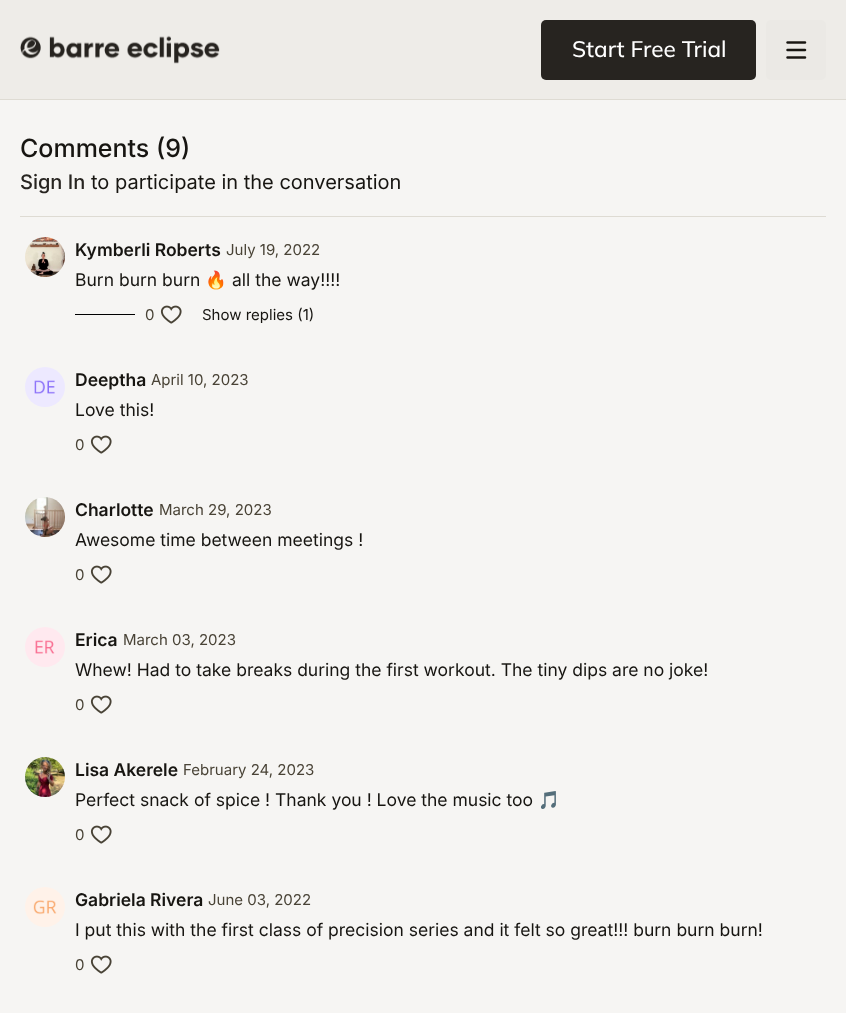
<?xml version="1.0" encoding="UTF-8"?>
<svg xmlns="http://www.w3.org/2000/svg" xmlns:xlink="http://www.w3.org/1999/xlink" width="846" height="1013">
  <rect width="100%" height="100%" fill="#f6f5f3" />
  <rect width="846" height="99" fill="#eeece8" />
  <rect y="99" width="846" height="1" fill="#dedbd3" />
  <image x="20" y="35" width="200" height="29" xlink:href="image1.png" />
  <rect x="541" y="20" width="215" height="60" rx="5" fill="#272420" />
  <rect x="766" y="20" width="60" height="60" rx="5" fill="#ebe9e5" />
  <image x="786" y="41" width="21" height="18" xlink:href="image2.png" />
  <rect x="20" y="216" width="806" height="1" fill="#dedbd3" />
  <image x="25" y="237" width="40" height="40" xlink:href="image3.png" />
  <rect x="75" y="314" width="60" height="1" fill="#000000" />
  <image x="160" y="305" width="22" height="19" xlink:href="image4.png" />
  <image x="25" y="367" width="40" height="40" xlink:href="image5.png" />
  <image x="90" y="435" width="22" height="19" xlink:href="image4.png" />
  <image x="25" y="497" width="40" height="40" xlink:href="image6.png" />
  <image x="90" y="565" width="22" height="19" xlink:href="image4.png" />
  <image x="25" y="627" width="40" height="40" xlink:href="image7.png" />
  <image x="90" y="695" width="22" height="19" xlink:href="image4.png" />
  <image x="25" y="757" width="40" height="40" xlink:href="image8.png" />
  <image x="90" y="825" width="22" height="19" xlink:href="image4.png" />
  <image x="25" y="887" width="40" height="40" xlink:href="image9.png" />
  <image x="90" y="955" width="22" height="19" xlink:href="image4.png" />
  <text x="572" y="57" style="font-family: Mulish; font-size: 22.5px; font-weight: 500; fill: #ffffff">Start Free Trial</text>
  <text x="20" y="157" style="font-family: Inter; font-size: 25px; font-weight: 500; fill: #171511">Comments (9)</text>
  <text x="20" y="189" style="font-family: Inter; font-size: 20px; font-weight: 500; fill: #272420">Sign In</text>
  <text x="91" y="189" style="font-family: Inter; font-size: 20px; fill: #171511">to participate in the conversation</text>
  <text x="75" y="256" style="font-family: Inter; font-size: 17.5px; font-weight: 600; fill: #171511">Kymberli Roberts</text>
  <text x="226" y="255" style="font-family: Inter; font-size: 15px; fill: #494336">July 19, 2022</text>
  <text x="75" y="286" style="font-family: Inter; font-size: 17.5px; fill: #171511">Burn burn burn</text>
  <text x="205" y="286" style="font-family: Noto Color Emoji; font-size: 17.5px; fill: #171511">🔥</text>
  <text x="232" y="286" style="font-family: Inter; font-size: 17.5px; fill: #171511">all the way!!!!</text>
  <text x="145" y="320" style="font-family: Inter; font-size: 15px; fill: #494336">0</text>
  <text x="202" y="320" style="font-family: Inter; font-size: 15px; fill: #171511">Show replies (1)</text>
  <text x="75" y="386" style="font-family: Inter; font-size: 17.5px; font-weight: 600; fill: #171511">Deeptha</text>
  <text x="151" y="385" style="font-family: Inter; font-size: 15px; fill: #494336">April 10, 2023</text>
  <text x="75" y="416" style="font-family: Inter; font-size: 17.5px; fill: #171511">Love this!</text>
  <text x="75" y="450" style="font-family: Inter; font-size: 15px; fill: #494336">0</text>
  <text x="75" y="516" style="font-family: Inter; font-size: 17.5px; font-weight: 600; fill: #171511">Charlotte</text>
  <text x="159" y="515" style="font-family: Inter; font-size: 15px; fill: #494336">March 29, 2023</text>
  <text x="75" y="546" style="font-family: Inter; font-size: 17.5px; fill: #171511">Awesome time between meetings !</text>
  <text x="75" y="580" style="font-family: Inter; font-size: 15px; fill: #494336">0</text>
  <text x="75" y="646" style="font-family: Inter; font-size: 17.5px; font-weight: 600; fill: #171511">Erica</text>
  <text x="123" y="645" style="font-family: Inter; font-size: 15px; fill: #494336">March 03, 2023</text>
  <text x="75" y="676" style="font-family: Inter; font-size: 17.5px; fill: #171511">Whew! Had to take breaks during the first workout. The tiny dips are no joke!</text>
  <text x="75" y="710" style="font-family: Inter; font-size: 15px; fill: #494336">0</text>
  <text x="75" y="776" style="font-family: Inter; font-size: 17.5px; font-weight: 600; fill: #171511">Lisa Akerele</text>
  <text x="183" y="775" style="font-family: Inter; font-size: 15px; fill: #494336">February 24, 2023</text>
  <text x="75" y="806" style="font-family: Inter; font-size: 17.5px; fill: #171511">Perfect snack of spice ! Thank you ! Love the music too</text>
  <text x="538" y="806" style="font-family: Noto Color Emoji; font-size: 17.5px; fill: #171511">🎵</text>
  <text x="75" y="840" style="font-family: Inter; font-size: 15px; fill: #494336">0</text>
  <text x="75" y="906" style="font-family: Inter; font-size: 17.5px; font-weight: 600; fill: #171511">Gabriela Rivera</text>
  <text x="208" y="905" style="font-family: Inter; font-size: 15px; fill: #494336">June 03, 2022</text>
  <text x="75" y="936" style="font-family: Inter; font-size: 17.5px; fill: #171511">I put this with the first class of precision series and it felt so great!!! burn burn burn!</text>
  <text x="75" y="970" style="font-family: Inter; font-size: 15px; fill: #494336">0</text>
</svg>
